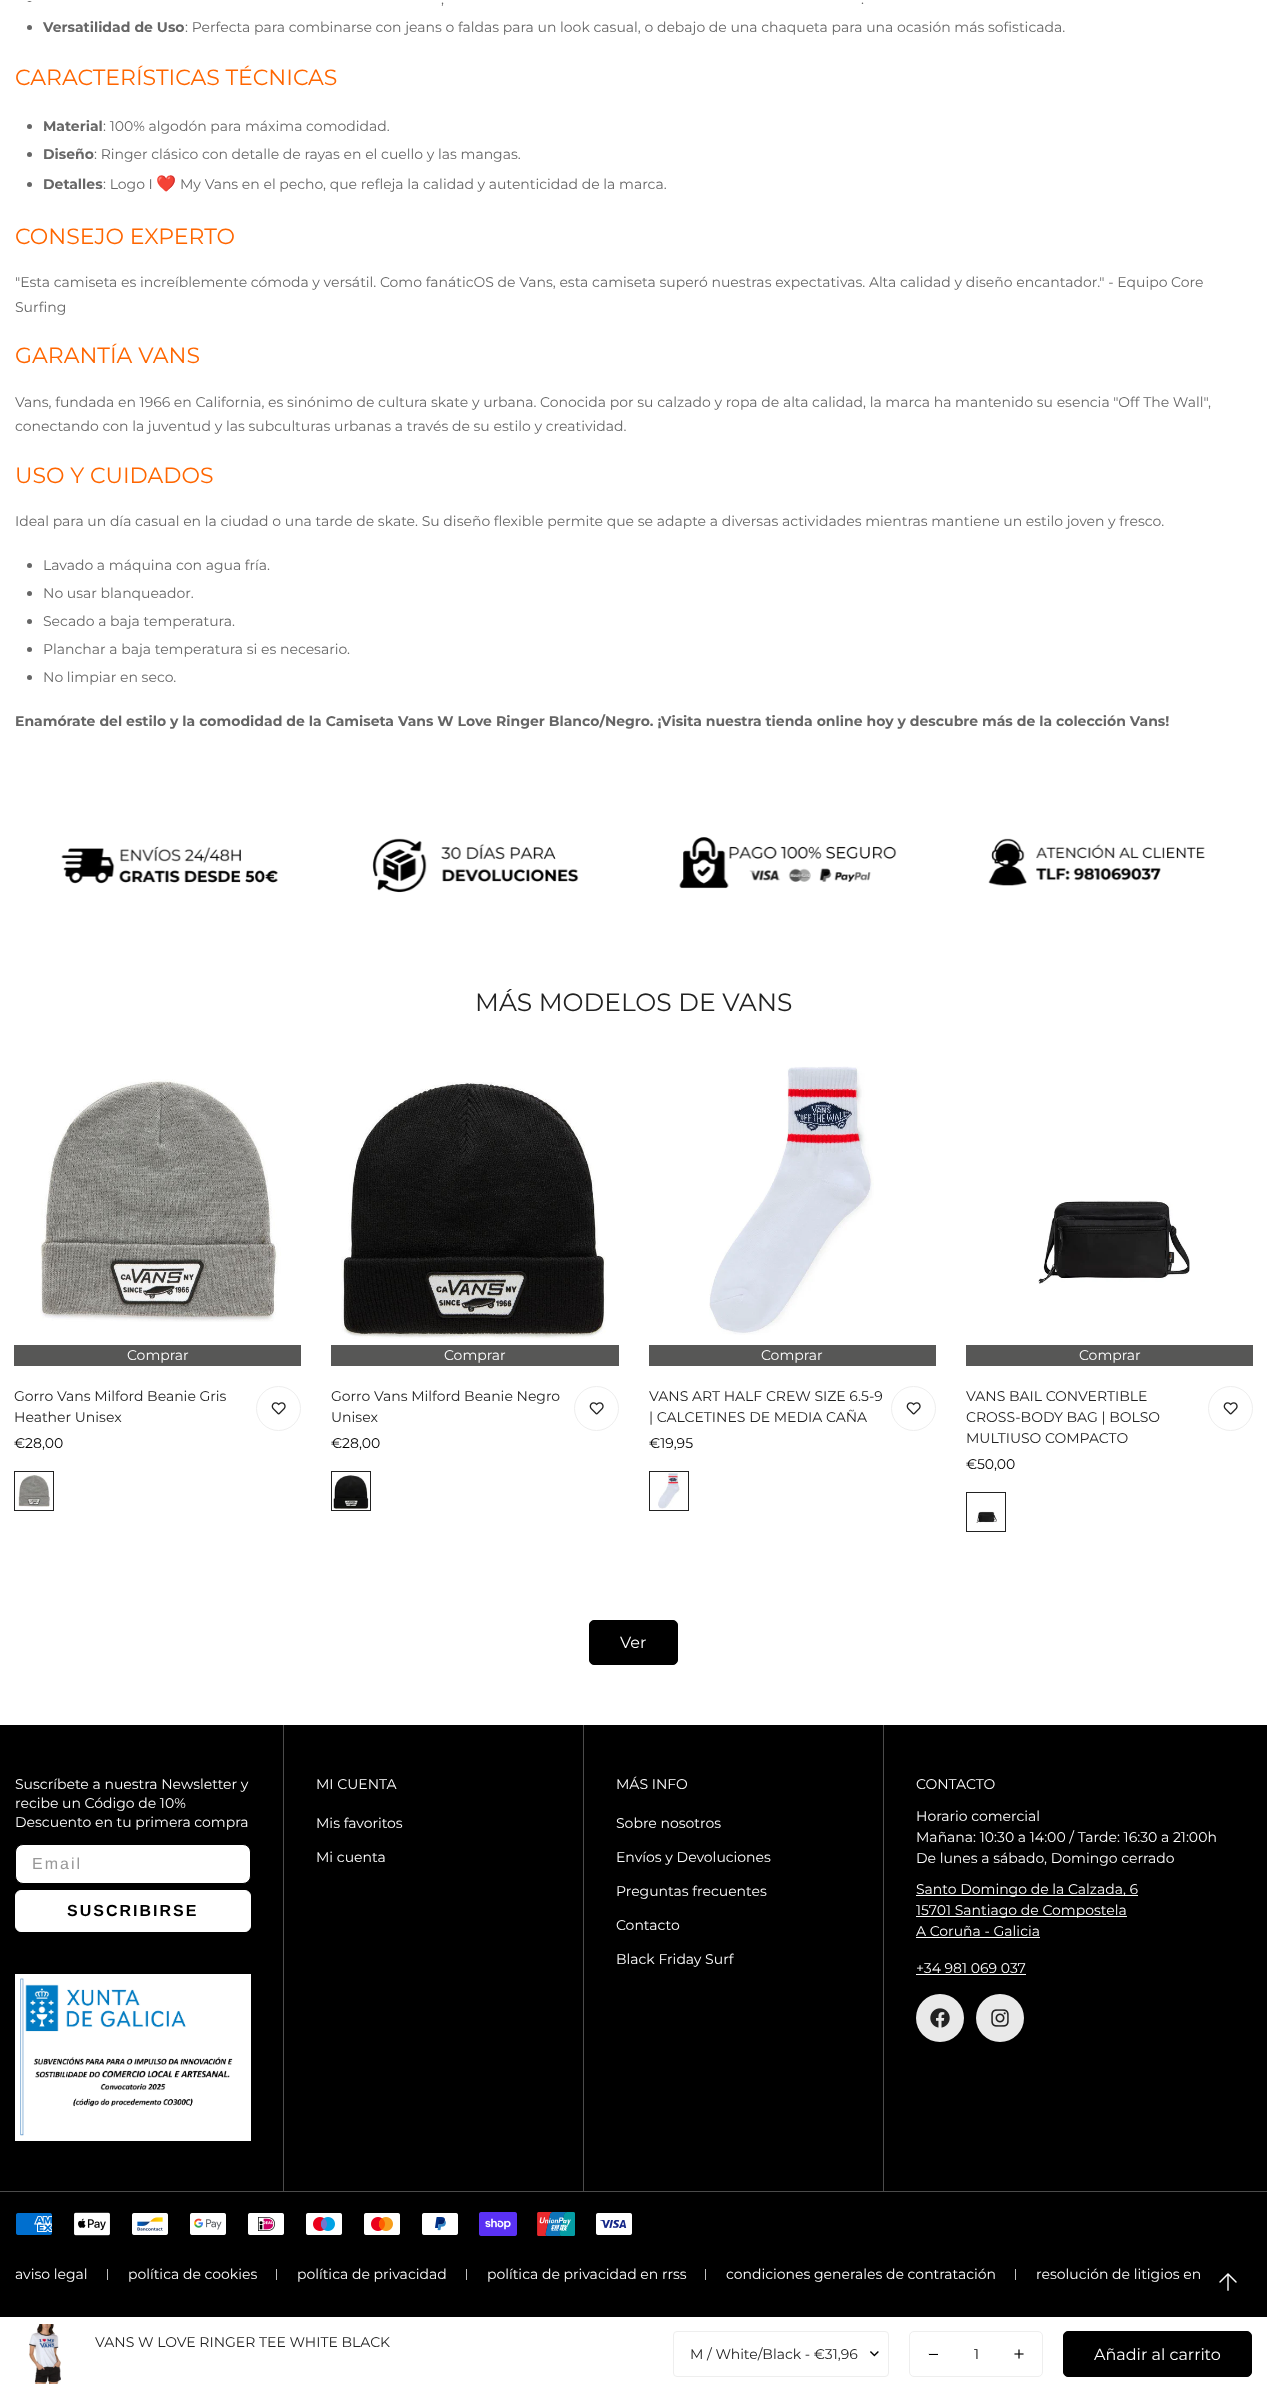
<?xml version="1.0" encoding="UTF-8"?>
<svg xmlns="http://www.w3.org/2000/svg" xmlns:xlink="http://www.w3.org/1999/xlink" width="1267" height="2391">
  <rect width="100%" height="100%" fill="#ffffff" />
  <circle cx="29.5" cy="-0.5" r="2.5" fill="#666666" />
  <rect x="27" width="5" height="1" fill="#ffffff" />
  <circle cx="29.5" cy="27.5" r="2.5" fill="#666666" />
  <circle cx="29.5" cy="126.5" r="2.5" fill="#666666" />
  <circle cx="29.5" cy="154.5" r="2.5" fill="#666666" />
  <circle cx="29.5" cy="184.5" r="2.5" fill="#666666" />
  <circle cx="29.5" cy="565.5" r="2.5" fill="#666666" />
  <circle cx="29.5" cy="593.5" r="2.5" fill="#666666" />
  <circle cx="29.5" cy="621.5" r="2.5" fill="#666666" />
  <circle cx="29.5" cy="649.5" r="2.5" fill="#666666" />
  <circle cx="29.5" cy="677.5" r="2.5" fill="#666666" />
  <image x="61" y="846" width="217" height="38" xlink:href="image1.png" />
  <image x="372" y="838" width="207" height="55" xlink:href="image2.png" />
  <image x="679" y="837" width="218" height="52" xlink:href="image3.png" />
  <image x="988" y="838" width="217" height="48" xlink:href="image4.png" />
  <image x="40" y="1079" width="241" height="243" xlink:href="image5.png" />
  <rect x="14" y="1345" width="287" height="21" fill="#575756" />
  <circle cx="278.5" cy="1408.5" r="22" fill="none" stroke="#eeeeee" />
  <image x="271" y="1402" width="15" height="13" xlink:href="image6.png" />
  <image x="18" y="1475" width="33" height="32" xlink:href="image7.png" />
  <rect x="14.5" y="1471.5" width="39" height="39" fill="none" stroke="#222222" />
  <image x="341" y="1082" width="265" height="257" xlink:href="image8.png" />
  <rect x="331" y="1345" width="288" height="21" fill="#575756" />
  <circle cx="596.5" cy="1408.5" r="22" fill="none" stroke="#eeeeee" />
  <image x="589" y="1402" width="15" height="13" xlink:href="image6.png" />
  <image x="333" y="1472" width="36" height="38" xlink:href="image9.png" />
  <rect x="331.5" y="1471.5" width="39" height="39" fill="none" stroke="#222222" />
  <image x="709" y="1066" width="165" height="269" xlink:href="image10.png" />
  <rect x="649" y="1345" width="287" height="21" fill="#575756" />
  <circle cx="913.5" cy="1408.5" r="22" fill="none" stroke="#eeeeee" />
  <image x="906" y="1402" width="15" height="13" xlink:href="image6.png" />
  <image x="658" y="1472" width="23" height="38" xlink:href="image11.png" />
  <rect x="649.5" y="1471.5" width="39" height="39" fill="none" stroke="#222222" />
  <image x="1038" y="1200" width="152" height="84" xlink:href="image12.png" />
  <rect x="966" y="1345" width="287" height="21" fill="#575756" />
  <circle cx="1230.5" cy="1408.5" r="22" fill="none" stroke="#eeeeee" />
  <image x="1223" y="1402" width="15" height="13" xlink:href="image6.png" />
  <image x="976" y="1511" width="21" height="12" xlink:href="image13.png" />
  <rect x="966.5" y="1492.5" width="39" height="39" fill="none" stroke="#222222" />
  <rect x="589.5" y="1620.5" width="88" height="44" rx="4.5" fill="#000000" stroke="#000000" />
  <image x="29" y="2324" width="32" height="60" xlink:href="image14.png" />
  <image x="870" y="2351" width="9" height="6" xlink:href="image15.png" />
  <rect x="673.5" y="2331.5" width="215" height="45" rx="3.5" fill="none" stroke="#eeeeee" />
  <rect x="909.5" y="2331.5" width="133" height="45" rx="4.5" fill="none" stroke="#eeeeee" />
  <image x="928" y="2353" width="10" height="2" xlink:href="image16.png" />
  <image x="1014" y="2349" width="10" height="10" xlink:href="image17.png" />
  <rect x="1063.5" y="2331.5" width="188" height="45" rx="4.5" fill="#000000" stroke="#000000" />
  <rect y="1725" width="1267" height="466" fill="#000000" />
  <rect y="2191" width="1267" height="1" fill="#4b4b4b" />
  <rect x="283" y="1725" width="1" height="466" fill="#4b4b4b" />
  <rect x="15.5" y="1844.5" width="235" height="39" rx="7.5" fill="#ffffff" stroke="#000000" />
  <rect x="15.5" y="1890.5" width="235" height="41" rx="5.5" fill="#ffffff" stroke="#ffffff" />
  <image x="15" y="1974" width="236" height="167" xlink:href="image18.png" />
  <rect x="583" y="1725" width="1" height="466" fill="#4b4b4b" />
  <rect x="883" y="1725" width="1" height="466" fill="#4b4b4b" />
  <rect x="916" y="1895" width="222" height="1" fill="#ffffff" />
  <rect x="916" y="1916" width="211" height="1" fill="#ffffff" />
  <rect x="916" y="1937" width="124" height="1" fill="#ffffff" />
  <rect x="916" y="1974" width="110" height="1" fill="#ffffff" />
  <circle cx="940" cy="2018" r="24" fill="#e9e9e9" />
  <image x="930" y="2008" width="20" height="20" xlink:href="image19.png" />
  <circle cx="1000" cy="2018" r="24" fill="#e9e9e9" />
  <image x="991" y="2009" width="18" height="18" xlink:href="image20.png" />
  <rect y="2192" width="1267" height="125" fill="#000000" />
  <image x="16" y="2213" width="36" height="22" xlink:href="image21.png" />
  <image x="74" y="2212" width="36" height="24" xlink:href="image22.png" />
  <image x="132" y="2213" width="36" height="22" xlink:href="image23.png" />
  <image x="190" y="2213" width="36" height="22" xlink:href="image24.png" />
  <image x="248" y="2213" width="36" height="22" xlink:href="image25.png" />
  <image x="306" y="2213" width="36" height="22" xlink:href="image26.png" />
  <image x="364" y="2213" width="36" height="22" xlink:href="image27.png" />
  <image x="422" y="2213" width="36" height="22" xlink:href="image28.png" />
  <image x="479" y="2212" width="38" height="24" xlink:href="image29.png" />
  <image x="537" y="2212" width="38" height="24" xlink:href="image30.png" />
  <image x="596" y="2213" width="36" height="22" xlink:href="image31.png" />
  <rect x="107" y="2269" width="1" height="11" fill="#bfbfbf" />
  <rect x="276" y="2269" width="1" height="11" fill="#bfbfbf" />
  <rect x="466" y="2269" width="1" height="11" fill="#bfbfbf" />
  <rect x="705" y="2269" width="1" height="11" fill="#bfbfbf" />
  <rect x="1015" y="2269" width="1" height="11" fill="#bfbfbf" />
  <image x="1219" y="2273" width="18" height="18" xlink:href="image32.png" />
  <text x="441" y="4" style="font-family: Montserrat; font-size: 14px; fill: #666666">,</text>
  <text x="861" y="4" style="font-family: Montserrat; font-size: 14px; fill: #666666">.</text>
  <text x="43" y="32" style="font-family: Montserrat; font-size: 14px; font-weight: bold; fill: #666666">Versatilidad de Uso</text>
  <text x="185" y="32" style="font-family: Montserrat; font-size: 14px; fill: #666666">: Perfecta para combinarse con jeans o faldas para un look casual, o debajo de una chaqueta para una ocasión más sofisticada.</text>
  <text x="15" y="85" style="font-family: Montserrat; font-size: 22px; fill: #ff6600">CARACTERÍSTICAS TÉCNICAS</text>
  <text x="43" y="131" style="font-family: Montserrat; font-size: 14px; font-weight: bold; fill: #666666">Material</text>
  <text x="103" y="131" style="font-family: Montserrat; font-size: 14px; fill: #666666">: 100% algodón para máxima comodidad.</text>
  <text x="43" y="159" style="font-family: Montserrat; font-size: 14px; font-weight: bold; fill: #666666">Diseño</text>
  <text x="94" y="159" style="font-family: Montserrat; font-size: 14px; fill: #666666">: Ringer clásico con detalle de rayas en el cuello y las mangas.</text>
  <text x="43" y="189" style="font-family: Montserrat; font-size: 14px; font-weight: bold; fill: #666666">Detalles</text>
  <text x="103" y="189" style="font-family: Montserrat; font-size: 14px; fill: #666666">: Logo I</text>
  <text x="156" y="189" style="font-family: Noto Color Emoji; font-size: 16px; fill: #0000ff">❤️</text>
  <text x="180" y="189" style="font-family: Montserrat; font-size: 14px; fill: #666666">My Vans en el pecho, que refleja la calidad y autenticidad de la marca.</text>
  <text x="15" y="244" style="font-family: Montserrat; font-size: 22px; fill: #ff6600">CONSEJO EXPERTO</text>
  <text x="15" y="287" style="font-family: Montserrat; font-size: 14px; fill: #666666">"Esta camiseta es increíblemente cómoda y versátil. Como fanáticOS de Vans, esta camiseta superó nuestras expectativas. Alta calidad y diseño encantador." - Equipo Core</text>
  <text x="15" y="312" style="font-family: Montserrat; font-size: 14px; fill: #666666">Surfing</text>
  <text x="15" y="363" style="font-family: Montserrat; font-size: 22px; fill: #ff6600">GARANTÍA VANS</text>
  <text x="15" y="407" style="font-family: Montserrat; font-size: 14px; fill: #666666">Vans, fundada en 1966 en California, es sinónimo de cultura skate y urbana. Conocida por su calzado y ropa de alta calidad, la marca ha mantenido su esencia "Off The Wall",</text>
  <text x="15" y="431" style="font-family: Montserrat; font-size: 14px; fill: #666666">conectando con la juventud y las subculturas urbanas a través de su estilo y creatividad.</text>
  <text x="15" y="483" style="font-family: Montserrat; font-size: 22px; fill: #ff6600">USO Y CUIDADOS</text>
  <text x="15" y="526" style="font-family: Montserrat; font-size: 14px; fill: #666666">Ideal para un día casual en la ciudad o una tarde de skate. Su diseño flexible permite que se adapte a diversas actividades mientras mantiene un estilo joven y fresco.</text>
  <text x="43" y="570" style="font-family: Montserrat; font-size: 14px; fill: #666666">Lavado a máquina con agua fría.</text>
  <text x="43" y="598" style="font-family: Montserrat; font-size: 14px; fill: #666666">No usar blanqueador.</text>
  <text x="43" y="626" style="font-family: Montserrat; font-size: 14px; fill: #666666">Secado a baja temperatura.</text>
  <text x="43" y="654" style="font-family: Montserrat; font-size: 14px; fill: #666666">Planchar a baja temperatura si es necesario.</text>
  <text x="43" y="682" style="font-family: Montserrat; font-size: 14px; fill: #666666">No limpiar en seco.</text>
  <text x="15" y="726" style="font-family: Montserrat; font-size: 14px; font-weight: bold; fill: #666666">Enamórate del estilo y la comodidad de la Camiseta Vans W Love Ringer Blanco/Negro. ¡Visita nuestra tienda online hoy y descubre más de la colección Vans!</text>
  <text x="475" y="1011" style="font-family: Montserrat; font-size: 25px; fill: #222222">MÁS MODELOS DE VANS</text>
  <text x="127" y="1360" style="font-family: Montserrat; font-size: 14px; fill: #ffffff">Comprar</text>
  <text x="14" y="1401" style="font-family: Montserrat; font-size: 14px; fill: #222222">Gorro Vans Milford Beanie Gris</text>
  <text x="14" y="1422" style="font-family: Montserrat; font-size: 14px; fill: #222222">Heather Unisex</text>
  <text x="14" y="1448" style="font-family: Montserrat; font-size: 14px; fill: #000000">€28,00</text>
  <text x="444" y="1360" style="font-family: Montserrat; font-size: 14px; fill: #ffffff">Comprar</text>
  <text x="331" y="1401" style="font-family: Montserrat; font-size: 14px; fill: #222222">Gorro Vans Milford Beanie Negro</text>
  <text x="331" y="1422" style="font-family: Montserrat; font-size: 14px; fill: #222222">Unisex</text>
  <text x="331" y="1448" style="font-family: Montserrat; font-size: 14px; fill: #000000">€28,00</text>
  <text x="761" y="1360" style="font-family: Montserrat; font-size: 14px; fill: #ffffff">Comprar</text>
  <text x="649" y="1401" style="font-family: Montserrat; font-size: 14px; fill: #222222">VANS ART HALF CREW SIZE 6.5-9</text>
  <text x="649" y="1422" style="font-family: Montserrat; font-size: 14px; fill: #222222">| CALCETINES DE MEDIA CAÑA</text>
  <text x="649" y="1448" style="font-family: Montserrat; font-size: 14px; fill: #000000">€19,95</text>
  <text x="1079" y="1360" style="font-family: Montserrat; font-size: 14px; fill: #ffffff">Comprar</text>
  <text x="966" y="1401" style="font-family: Montserrat; font-size: 14px; fill: #222222">VANS BAIL CONVERTIBLE</text>
  <text x="966" y="1422" style="font-family: Montserrat; font-size: 14px; fill: #222222">CROSS-BODY BAG | BOLSO</text>
  <text x="966" y="1443" style="font-family: Montserrat; font-size: 14px; fill: #222222">MULTIUSO COMPACTO</text>
  <text x="966" y="1469" style="font-family: Montserrat; font-size: 14px; fill: #000000">€50,00</text>
  <text x="620" y="1648" style="font-family: Montserrat; font-size: 16px; fill: #ffffff">Ver</text>
  <text x="95" y="2347" style="font-family: Montserrat; font-size: 14px; fill: #222222">VANS W LOVE RINGER TEE WHITE BLACK</text>
  <text x="690" y="2359" style="font-family: Montserrat; font-size: 14px; fill: #222222">M / White/Black - €31,96</text>
  <text x="974" y="2359" style="font-family: Montserrat; font-size: 14px; fill: #000000">1</text>
  <text x="1094" y="2360" style="font-family: Montserrat; font-size: 16px; fill: #ffffff">Añadir al carrito</text>
  <text x="15" y="1789" style="font-family: Montserrat; font-size: 14px; fill: #ffffff">Suscríbete a nuestra Newsletter y</text>
  <text x="15" y="1808" style="font-family: Montserrat; font-size: 14px; fill: #ffffff">recibe un Código de 10%</text>
  <text x="15" y="1827" style="font-family: Montserrat; font-size: 14px; fill: #ffffff">Descuento en tu primera compra</text>
  <text x="32" y="1869" style="font-family: Liberation Sans; font-size: 16px; letter-spacing: 2px; fill: #989898">Email</text>
  <text x="67" y="1916" style="font-family: Liberation Sans; font-size: 16px; font-weight: bold; letter-spacing: 2px; fill: #000000">SUSCRIBIRSE</text>
  <text x="316" y="1789" style="font-family: Montserrat; font-size: 14px; fill: #ffffff">MI CUENTA</text>
  <text x="316" y="1828" style="font-family: Montserrat; font-size: 14px; fill: #ffffff">Mis favoritos</text>
  <text x="316" y="1862" style="font-family: Montserrat; font-size: 14px; fill: #ffffff">Mi cuenta</text>
  <text x="616" y="1789" style="font-family: Montserrat; font-size: 14px; fill: #ffffff">MÁS INFO</text>
  <text x="616" y="1828" style="font-family: Montserrat; font-size: 14px; fill: #ffffff">Sobre nosotros</text>
  <text x="616" y="1862" style="font-family: Montserrat; font-size: 14px; fill: #ffffff">Envíos y Devoluciones</text>
  <text x="616" y="1896" style="font-family: Montserrat; font-size: 14px; fill: #ffffff">Preguntas frecuentes</text>
  <text x="616" y="1930" style="font-family: Montserrat; font-size: 14px; fill: #ffffff">Contacto</text>
  <text x="616" y="1964" style="font-family: Montserrat; font-size: 14px; fill: #ffffff">Black Friday Surf</text>
  <text x="916" y="1789" style="font-family: Montserrat; font-size: 14px; fill: #ffffff">CONTACTO</text>
  <text x="916" y="1821" style="font-family: Montserrat; font-size: 14px; fill: #ffffff">Horario comercial</text>
  <text x="916" y="1842" style="font-family: Montserrat; font-size: 14px; fill: #ffffff">Mañana: 10:30 a 14:00 / Tarde: 16:30 a 21:00h</text>
  <text x="916" y="1863" style="font-family: Montserrat; font-size: 14px; fill: #ffffff">De lunes a sábado, Domingo cerrado</text>
  <text x="916" y="1894" style="font-family: Montserrat; font-size: 14px; fill: #ffffff">Santo Domingo de la Calzada, 6</text>
  <text x="916" y="1915" style="font-family: Montserrat; font-size: 14px; fill: #ffffff">15701 Santiago de Compostela</text>
  <text x="916" y="1936" style="font-family: Montserrat; font-size: 14px; fill: #ffffff">A Coruña - Galicia</text>
  <text x="916" y="1973" style="font-family: Montserrat; font-size: 14px; fill: #ffffff">+34 981 069 037</text>
  <text x="15" y="2279" style="font-family: Montserrat; font-size: 14px; fill: #ffffff">aviso legal</text>
  <text x="128" y="2279" style="font-family: Montserrat; font-size: 14px; fill: #ffffff">política de cookies</text>
  <text x="297" y="2279" style="font-family: Montserrat; font-size: 14px; fill: #ffffff">política de privacidad</text>
  <text x="487" y="2279" style="font-family: Montserrat; font-size: 14px; fill: #ffffff">política de privacidad en rrss</text>
  <text x="726" y="2279" style="font-family: Montserrat; font-size: 14px; fill: #ffffff">condiciones generales de contratación</text>
  <text x="1036" y="2279" style="font-family: Montserrat; font-size: 14px; fill: #ffffff">resolución de litigios en</text>
</svg>
